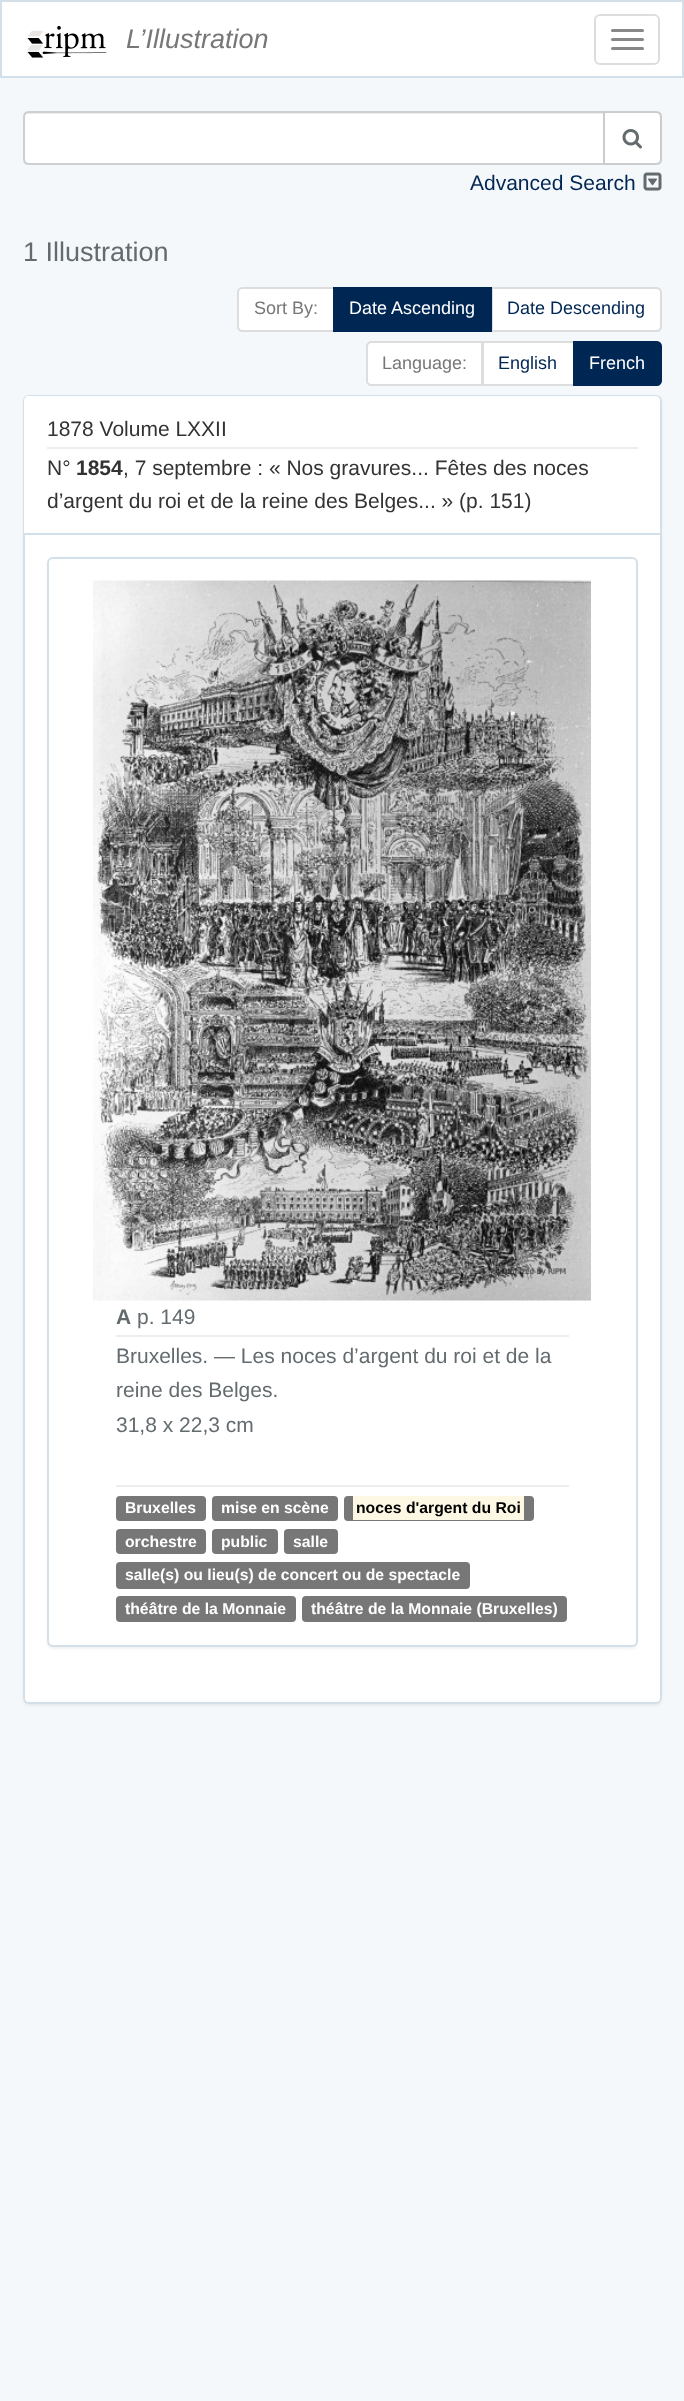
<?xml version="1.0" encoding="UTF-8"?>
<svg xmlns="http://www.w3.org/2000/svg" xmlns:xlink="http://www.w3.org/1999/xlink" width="684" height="2401">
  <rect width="100%" height="100%" fill="#f5f8fa" />
  <rect x="1" y="1" width="682" height="76" fill="#ffffff" stroke="#d3e0e9" stroke-width="2" />
  <image x="27" y="26" width="80" height="32" xlink:href="image1.png" />
  <rect x="595" y="15" width="64" height="49" rx="5" fill="none" stroke="#dddddd" stroke-width="2" />
  <rect x="611" y="29" width="33" height="3" rx="1.5" fill="#888888" />
  <rect x="611" y="38" width="33" height="3" rx="1.5" fill="#888888" />
  <rect x="611" y="47" width="33" height="3" rx="1.5" fill="#888888" />
  <path d="M 29 111 h 576 v 54 h -576 c -3.5 0 -6 -2.5 -6 -6 v -42 c 0 -3.5 2.5 -6 6 -6 z" fill="#ffffff" />
  <path d="M 28 114 h 575 v -1 h -574 c -3 0 -5 2 -5 5 c 0 -2 2 -4 4 -4 z" fill="#ececec" />
  <path d="M 29 112 h 575 v 52 h -575 c -3 0 -5 -2 -5 -5 v -42 c 0 -3 2 -5 5 -5 z" fill="none" stroke="#ccd0d2" stroke-width="2" />
  <path d="M 604 112 h 52 c 3 0 5 2 5 5 v 42 c 0 3 -2 5 -5 5 h -52 z" fill="#ffffff" stroke="#cccccc" stroke-width="2" />
  <image x="622" y="129" width="20" height="20" xlink:href="image2.png" />
  <image x="643" y="172" width="19" height="19" xlink:href="image3.png" />
  <path d="M 242 288 h 92 v 43 h -92 c -2 0 -4 -2 -4 -4 v -35 c 0 -2 2 -4 4 -4 z" fill="#ffffff" stroke="#dddddd" stroke-width="2" />
  <path d="M 492 288 h 165 c 2 0 4 2 4 4 v 35 c 0 2 -2 4 -4 4 h -165 z" fill="#ffffff" stroke="#dddddd" stroke-width="2" />
  <rect x="333" y="287" width="159" height="45" fill="#002654" />
  <path d="M 371 342 h 111 v 43 h -111 c -2 0 -4 -2 -4 -4 v -35 c 0 -2 2 -4 4 -4 z" fill="#ffffff" stroke="#dddddd" stroke-width="2" />
  <rect x="483" y="342" width="91" height="43" fill="#ffffff" stroke="#dddddd" stroke-width="2" />
  <path d="M 574 342 h 83 c 2 0 4 2 4 4 v 35 c 0 2 -2 4 -4 4 h -83 z" fill="#002654" stroke="#002654" stroke-width="2" />
  <rect x="23" y="396" width="639" height="1310" rx="6" fill="#000000" fill-opacity="0.05" filter="blur(1px)" />
  <rect x="24" y="396" width="637" height="1307" rx="5" fill="#ffffff" stroke="#d3e0e9" stroke-width="2" />
  <path d="M 29 396 h 626 c 3 0 5 2 5 5 v 133 h -636 v -133 c 0 -3 2 -5 5 -5 z" fill="#ffffff" />
  <rect x="24" y="533" width="636" height="2" fill="#d3e0e9" />
  <rect x="47" y="447" width="591" height="2" fill="#eeeeee" />
  <rect x="47" y="558" width="591" height="1091" rx="6" fill="#000000" fill-opacity="0.05" filter="blur(1px)" />
  <rect x="48" y="558" width="589" height="1088" rx="5" fill="#ffffff" stroke="#d3e0e9" stroke-width="2" />
  <image x="93" y="580" width="498" height="721" xlink:href="image4.png" />
  <rect x="116" y="1335" width="453" height="2" fill="#eeeeee" />
  <rect x="116" y="1485" width="453" height="2" fill="#eeeeee" />
  <rect x="116" y="1496" width="90" height="25" rx="4" fill="#777777" />
  <rect x="212" y="1496" width="126" height="25" rx="4" fill="#777777" />
  <rect x="344" y="1496" width="190" height="25" rx="4" fill="#777777" />
  <rect x="353" y="1496" width="171" height="24" fill="#fcf8e3" />
  <rect x="116" y="1529" width="90" height="25" rx="4" fill="#777777" />
  <rect x="212" y="1529" width="66" height="25" rx="4" fill="#777777" />
  <rect x="284" y="1529" width="54" height="25" rx="4" fill="#777777" />
  <rect x="116" y="1562" width="354" height="27" rx="4" fill="#777777" />
  <rect x="116" y="1596" width="180" height="26" rx="4" fill="#777777" />
  <rect x="302" y="1596" width="265" height="26" rx="4" fill="#777777" />
  <text x="126" y="48" style="font-family: Liberation Sans; font-size: 27px; font-style: italic; fill: #777777">L’Illustration</text>
  <text x="470" y="190" style="font-family: Liberation Sans; font-size: 21px; fill: #002654">Advanced Search</text>
  <text x="23" y="261" style="font-family: Liberation Sans; font-size: 27px; fill: #636b6f">1 Illustration</text>
  <text x="254" y="314" style="font-family: Liberation Sans; font-size: 18px; fill: #777777">Sort By:</text>
  <text x="349" y="314" style="font-family: Liberation Sans; font-size: 18px; fill: #ffffff">Date Ascending</text>
  <text x="507" y="314" style="font-family: Liberation Sans; font-size: 18px; fill: #002654">Date Descending</text>
  <text x="382" y="369" style="font-family: Liberation Sans; font-size: 18px; fill: #777777">Language:</text>
  <text x="498" y="369" style="font-family: Liberation Sans; font-size: 18px; fill: #002654">English</text>
  <text x="589" y="369" style="font-family: Liberation Sans; font-size: 18px; fill: #ffffff">French</text>
  <text x="47" y="436" style="font-family: Liberation Sans; font-size: 21px; fill: #333333">1878 Volume LXXII</text>
  <text x="47" y="475" style="font-family: Liberation Sans; font-size: 21px; fill: #333333">N°</text>
  <text x="76" y="475" style="font-family: Liberation Sans; font-size: 21px; font-weight: bold; fill: #333333">1854</text>
  <text x="123" y="475" style="font-family: Liberation Sans; font-size: 21px; fill: #333333">, 7 septembre : « Nos gravures... Fêtes des noces</text>
  <text x="47" y="508" style="font-family: Liberation Sans; font-size: 21px; fill: #333333">d’argent du roi et de la reine des Belges... » (p. 151)</text>
  <text x="116" y="1324" style="font-family: Liberation Sans; font-size: 21px; font-weight: bold; fill: #636b6f">A</text>
  <text x="137" y="1324" style="font-family: Liberation Sans; font-size: 21px; fill: #636b6f">p. 149</text>
  <text x="116" y="1363" style="font-family: Liberation Sans; font-size: 21px; fill: #636b6f">Bruxelles. — Les noces d’argent du roi et de la</text>
  <text x="116" y="1397" style="font-family: Liberation Sans; font-size: 21px; fill: #636b6f">reine des Belges.</text>
  <text x="116" y="1432" style="font-family: Liberation Sans; font-size: 21px; fill: #636b6f">31,8 x 22,3 cm</text>
  <text x="125" y="1513" style="font-family: Liberation Sans; font-size: 15.75px; font-weight: bold; fill: #ffffff">Bruxelles</text>
  <text x="221" y="1513" style="font-family: Liberation Sans; font-size: 15.75px; font-weight: bold; fill: #ffffff">mise en scène</text>
  <text x="356" y="1513" style="font-family: Liberation Sans; font-size: 15.75px; font-weight: bold; fill: #000000">noces d'argent du Roi</text>
  <text x="125" y="1547" style="font-family: Liberation Sans; font-size: 15.75px; font-weight: bold; fill: #ffffff">orchestre</text>
  <text x="221" y="1547" style="font-family: Liberation Sans; font-size: 15.75px; font-weight: bold; fill: #ffffff">public</text>
  <text x="293" y="1547" style="font-family: Liberation Sans; font-size: 15.75px; font-weight: bold; fill: #ffffff">salle</text>
  <text x="125" y="1580" style="font-family: Liberation Sans; font-size: 15.75px; font-weight: bold; fill: #ffffff">salle(s) ou lieu(s) de concert ou de spectacle</text>
  <text x="125" y="1614" style="font-family: Liberation Sans; font-size: 15.75px; font-weight: bold; fill: #ffffff">théâtre de la Monnaie</text>
  <text x="311" y="1614" style="font-family: Liberation Sans; font-size: 15.75px; font-weight: bold; fill: #ffffff">théâtre de la Monnaie (Bruxelles)</text>
</svg>
